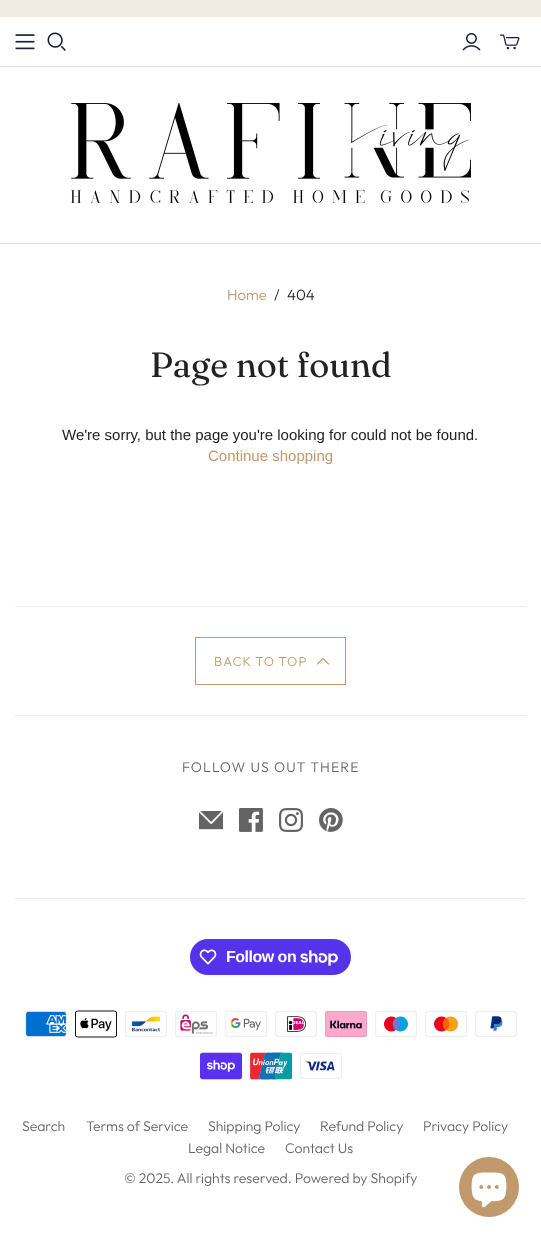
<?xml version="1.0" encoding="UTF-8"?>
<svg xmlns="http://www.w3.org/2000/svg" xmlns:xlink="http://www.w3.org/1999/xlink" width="541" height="1238">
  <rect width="100%" height="100%" fill="#ffffff" />
  <rect width="541" height="17" fill="#f2ebe3" />
  <rect y="243" width="541" height="1" fill="#dddddd" />
  <image x="15" y="34" width="20" height="16" xlink:href="image1.png" />
  <image x="47" y="32" width="19" height="19" xlink:href="image2.png" />
  <image x="462" y="33" width="19" height="18" xlink:href="image3.png" />
  <image x="500" y="34" width="20" height="16" xlink:href="image4.png" />
  <rect y="66" width="541" height="1" fill="#dddddd" />
  <image x="71" y="103" width="400" height="100" xlink:href="image5.png" />
  <rect x="15" y="606" width="511" height="1" fill="#eeeeee" />
  <rect x="195.5" y="637.5" width="150" height="47" fill="none" stroke="#c0996c" />
  <image x="317" y="657" width="13" height="8" xlink:href="image6.png" />
  <rect x="15" y="715" width="511" height="1" fill="#eeeeee" />
  <rect x="15" y="898" width="511" height="1" fill="#eeeeee" />
  <image x="199" y="811" width="24" height="19" xlink:href="image7.png" />
  <image x="239" y="808" width="24" height="24" xlink:href="image8.png" />
  <image x="279" y="808" width="24" height="24" xlink:href="image9.png" />
  <image x="319" y="808" width="24" height="24" xlink:href="image10.png" />
  <rect x="190" y="939" width="161" height="36" rx="18" fill="#5433eb" />
  <image x="199" y="949" width="18" height="16" xlink:href="image11.png" />
  <image x="300" y="950" width="38" height="16" xlink:href="image12.png" />
  <image x="25" y="1011" width="42" height="26" xlink:href="image13.png" />
  <image x="75" y="1010" width="42" height="28" xlink:href="image14.png" />
  <image x="125" y="1011" width="42" height="26" xlink:href="image15.png" />
  <image x="175" y="1011" width="42" height="26" xlink:href="image16.png" />
  <image x="225" y="1011" width="42" height="26" xlink:href="image17.png" />
  <image x="275" y="1011" width="42" height="26" xlink:href="image18.png" />
  <image x="325" y="1011" width="42" height="26" xlink:href="image19.png" />
  <image x="375" y="1011" width="42" height="26" xlink:href="image20.png" />
  <image x="425" y="1011" width="42" height="26" xlink:href="image21.png" />
  <image x="475" y="1011" width="42" height="26" xlink:href="image22.png" />
  <image x="200" y="1052" width="42" height="28" xlink:href="image23.png" />
  <image x="250" y="1052" width="42" height="28" xlink:href="image24.png" />
  <image x="300" y="1053" width="42" height="26" xlink:href="image25.png" />
  <circle cx="489" cy="1187" r="30" fill="#c0996c" />
  <image x="471" y="1172" width="36" height="36" xlink:href="image26.png" />
  <text x="227" y="300" style="font-family: Outfit; font-size: 15px; font-weight: 300; fill: #c0996c">Home</text>
  <text x="274" y="300" style="font-family: Outfit; font-size: 15px; font-weight: 300; fill: #222222">/</text>
  <text x="287" y="300" style="font-family: Outfit; font-size: 15px; font-weight: 300; fill: #222222">404</text>
  <text x="150" y="377" style="font-family: Fraunces; font-size: 35px; fill: #222222">Page not found</text>
  <text x="62" y="440" style="font-family: Liberation Sans; font-size: 15px; fill: #222222">We're sorry, but the page you're looking for could not be found.</text>
  <text x="208" y="461" style="font-family: Liberation Sans; font-size: 15px; fill: #c0996c">Continue shopping</text>
  <text x="214" y="666" style="font-family: Outfit; font-size: 13px; font-weight: 300; letter-spacing: 1px; fill: #c0996c">BACK TO TOP</text>
  <text x="182" y="772" style="font-family: Outfit; font-size: 14px; font-weight: 300; letter-spacing: 1.1px; fill: #646464">FOLLOW US OUT THERE</text>
  <text x="226" y="962" style="font-family: Liberation Sans; font-size: 16px; font-weight: bold; letter-spacing: -0.5px; fill: #ffffff">Follow on</text>
  <text x="22" y="1131" style="font-family: Outfit; font-size: 14px; font-weight: 300; fill: #646464">Search</text>
  <text x="86" y="1131" style="font-family: Outfit; font-size: 14px; font-weight: 300; fill: #646464">Terms of Service</text>
  <text x="208" y="1131" style="font-family: Outfit; font-size: 14px; font-weight: 300; fill: #646464">Shipping Policy</text>
  <text x="320" y="1131" style="font-family: Outfit; font-size: 14px; font-weight: 300; fill: #646464">Refund Policy</text>
  <text x="423" y="1131" style="font-family: Outfit; font-size: 14px; font-weight: 300; fill: #646464">Privacy Policy</text>
  <text x="188" y="1153" style="font-family: Outfit; font-size: 14px; font-weight: 300; fill: #646464">Legal Notice</text>
  <text x="285" y="1153" style="font-family: Outfit; font-size: 14px; font-weight: 300; fill: #646464">Contact Us</text>
  <text x="124" y="1183" style="font-family: Outfit; font-size: 14px; font-weight: 300; fill: #646464">© 2025. All rights reserved. Powered by Shopify</text>
</svg>
